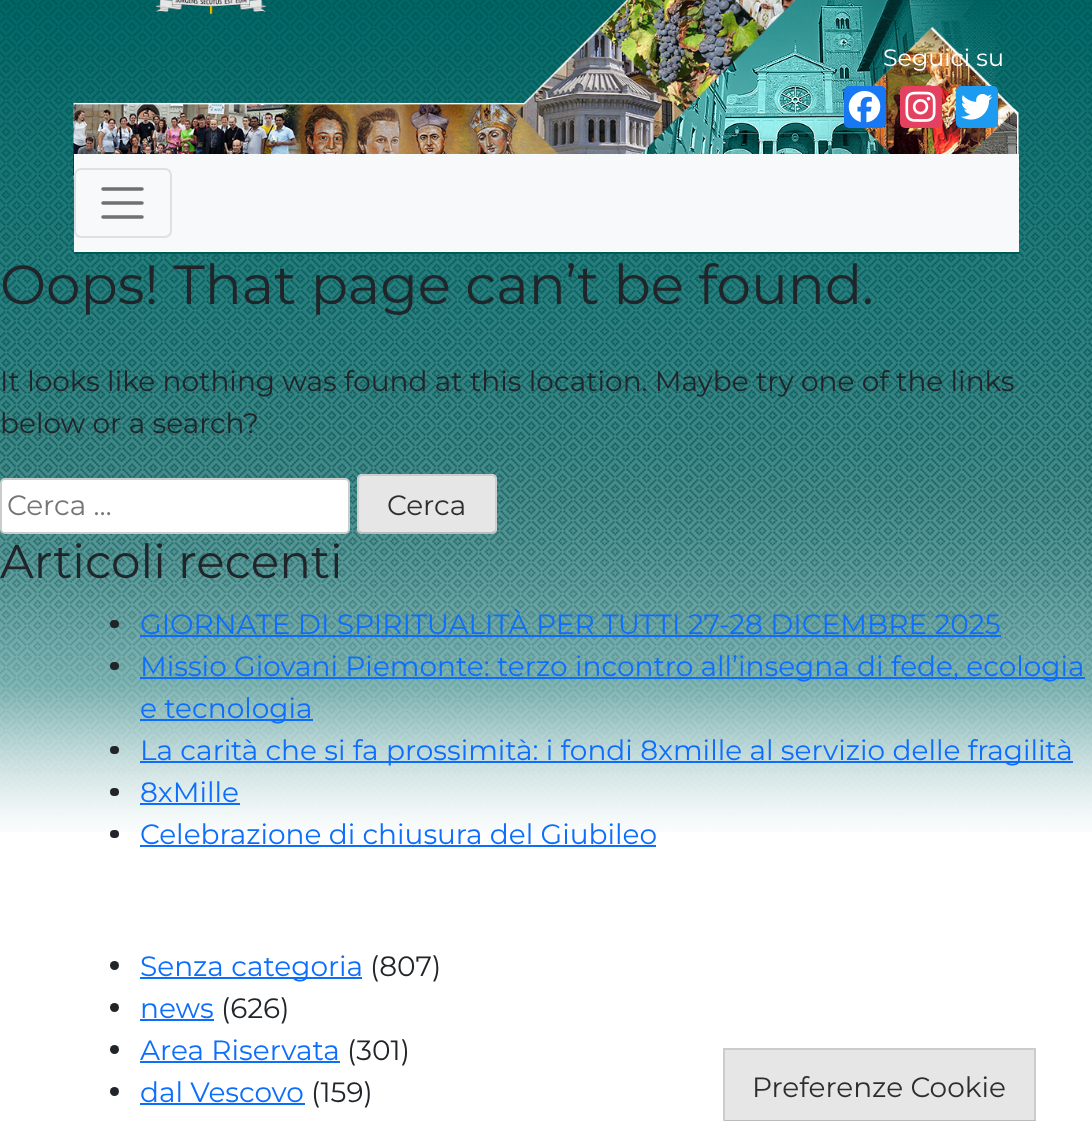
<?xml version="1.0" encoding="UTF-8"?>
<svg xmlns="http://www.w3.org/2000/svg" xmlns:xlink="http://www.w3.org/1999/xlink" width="1092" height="1121">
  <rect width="100%" height="100%" fill="#ffffff" />
  <image x="0" y="0" width="1092" height="832" xlink:href="image1.png" />
  <image x="73" y="0" width="946" height="180" xlink:href="image2.png" />
  <image x="154" y="0" width="114" height="14" xlink:href="image3.png" />
  <rect x="844" y="86" width="42" height="42" rx="5" fill="#1877f2" />
  <image x="848" y="91" width="33" height="32" xlink:href="image4.png" />
  <rect x="900" y="86" width="42" height="42" rx="5" fill="#e4405f" />
  <image x="905" y="91" width="31" height="31" xlink:href="image5.png" />
  <rect x="956" y="86" width="42" height="42" rx="5" fill="#1d9bf0" />
  <image x="961" y="94" width="32" height="26" xlink:href="image6.png" />
  <rect x="74" y="154" width="945" height="98" fill="#f8f9fa" />
  <rect x="74" y="252" width="945" height="2" fill="#005a51" />
  <rect x="75" y="169" width="96" height="68" rx="6" fill="none" stroke="#dfe0e1" stroke-width="2" />
  <path d="M 103 189 h 39 m -39 14 h 39 m -39 14 h 39" fill="none" stroke="#707071" stroke-width="3.5" stroke-linecap="round" />
  <rect x="1" y="479" width="348" height="54" rx="4" fill="#ffffff" stroke="#cccccc" stroke-width="2" />
  <rect x="357" y="474" width="140" height="60" rx="5" fill="#e6e6e6" />
  <path d="M 495 531.5 l -3 1.5 h -130 l -3 -1.5" fill="none" stroke="#bbbbbb" stroke-width="1.8" />
  <path d="M 359 531.5 c -0.5 -0.5 -1 -2 -1 -3 v -49 c 0 -1 0.5 -2.5 1 -3 c 1 -1 2 -1.5 3 -1.5 h 130 c 1 0 2 0.5 3 1.5 c 0.5 0.5 1 2 1 3 v 49 c 0 1 -0.5 2.5 -1 3" fill="none" stroke="#cccccc" stroke-width="1.8" />
  <rect x="110" y="620" width="9" height="8" rx="4" fill="#212529" />
  <rect x="140" y="635" width="861" height="2" fill="#0d6efd" />
  <rect x="110" y="662" width="9" height="8" rx="4" fill="#212529" />
  <rect x="140" y="677" width="945" height="2" fill="#0d6efd" />
  <rect x="140" y="719" width="173" height="2" fill="#0d6efd" />
  <rect x="110" y="746" width="9" height="8" rx="4" fill="#212529" />
  <rect x="140" y="761" width="933" height="2" fill="#0d6efd" />
  <rect x="110" y="788" width="9" height="8" rx="4" fill="#212529" />
  <rect x="140" y="803" width="100" height="2" fill="#0d6efd" />
  <rect x="110" y="830" width="9" height="8" rx="4" fill="#212529" />
  <rect x="140" y="845" width="516" height="2" fill="#0d6efd" />
  <circle cx="114.5" cy="965.5" r="4.5" fill="#212529" />
  <rect x="140" y="977" width="222" height="2" fill="#0d6efd" />
  <circle cx="114.5" cy="1007.5" r="4.5" fill="#212529" />
  <rect x="140" y="1019" width="74" height="2" fill="#0d6efd" />
  <circle cx="114.5" cy="1049.5" r="4.5" fill="#212529" />
  <rect x="140" y="1061" width="200" height="2" fill="#0d6efd" />
  <circle cx="114.5" cy="1091.5" r="4.5" fill="#212529" />
  <rect x="140" y="1103" width="165" height="2" fill="#0d6efd" />
  <rect x="725" y="1050" width="309" height="70" fill="#e6e6e6" />
  <rect x="723" y="1048" width="313" height="2" fill="#cccccc" />
  <rect x="1034" y="1048" width="2" height="73" fill="#cccccc" />
  <rect x="723" y="1120" width="313" height="1" fill="#bbbbbb" />
  <rect x="723" y="1048" width="2" height="73" fill="#cccccc" />
  <text x="883" y="66" style="font-family: Montserrat; font-size: 23.75px; font-weight: 100; fill: #ffffff">Seguici su</text>
  <text x="0" y="304" style="font-family: Montserrat; font-size: 54.9px; font-weight: 100; fill: #212529">Oops! That page can’t be found.</text>
  <text x="0" y="391" style="font-family: Montserrat; font-size: 28px; font-weight: 100; fill: #212529">It looks like nothing was found at this location. Maybe try one of the links</text>
  <text x="0" y="433" style="font-family: Montserrat; font-size: 28px; font-weight: 100; fill: #212529">below or a search?</text>
  <text x="7" y="515" style="font-family: Montserrat; font-size: 28px; font-weight: 100; fill: #757575">Cerca …</text>
  <text x="387" y="515" style="font-family: Montserrat; font-size: 28px; font-weight: 100; fill: #2e2e2e">Cerca</text>
  <text x="0" y="578" style="font-family: Montserrat; font-size: 47px; font-weight: 100; fill: #212529">Articoli recenti</text>
  <text x="140" y="634" style="font-family: Montserrat; font-size: 28px; font-weight: 100; fill: #0d6efd">GIORNATE DI SPIRITUALITÀ PER TUTTI 27-28 DICEMBRE 2025</text>
  <text x="140" y="676" style="font-family: Montserrat; font-size: 28px; font-weight: 100; fill: #0d6efd">Missio Giovani Piemonte: terzo incontro all’insegna di fede, ecologia</text>
  <text x="140" y="718" style="font-family: Montserrat; font-size: 28px; font-weight: 100; fill: #0d6efd">e tecnologia</text>
  <text x="140" y="760" style="font-family: Montserrat; font-size: 28px; font-weight: 100; fill: #0d6efd">La carità che si fa prossimità: i fondi 8xmille al servizio delle fragilità</text>
  <text x="140" y="802" style="font-family: Montserrat; font-size: 28px; font-weight: 100; fill: #0d6efd">8xMille</text>
  <text x="140" y="844" style="font-family: Montserrat; font-size: 28px; font-weight: 100; fill: #0d6efd">Celebrazione di chiusura del Giubileo</text>
  <text x="140" y="976" style="font-family: Montserrat; font-size: 28px; font-weight: 100; fill: #0d6efd">Senza categoria</text>
  <text x="370" y="976" style="font-family: Montserrat; font-size: 28px; font-weight: 100; fill: #212529">(807)</text>
  <text x="140" y="1018" style="font-family: Montserrat; font-size: 28px; font-weight: 100; fill: #0d6efd">news</text>
  <text x="221" y="1018" style="font-family: Montserrat; font-size: 28px; font-weight: 100; fill: #212529">(626)</text>
  <text x="140" y="1060" style="font-family: Montserrat; font-size: 28px; font-weight: 100; fill: #0d6efd">Area Riservata</text>
  <text x="347" y="1060" style="font-family: Montserrat; font-size: 28px; font-weight: 100; fill: #212529">(301)</text>
  <text x="140" y="1102" style="font-family: Montserrat; font-size: 28px; font-weight: 100; fill: #0d6efd">dal Vescovo</text>
  <text x="311" y="1102" style="font-family: Montserrat; font-size: 28px; font-weight: 100; fill: #212529">(159)</text>
  <text x="752" y="1097" style="font-family: Montserrat; font-size: 28px; font-weight: 100; fill: #2e2e2e">Preferenze Cookie</text>
</svg>
